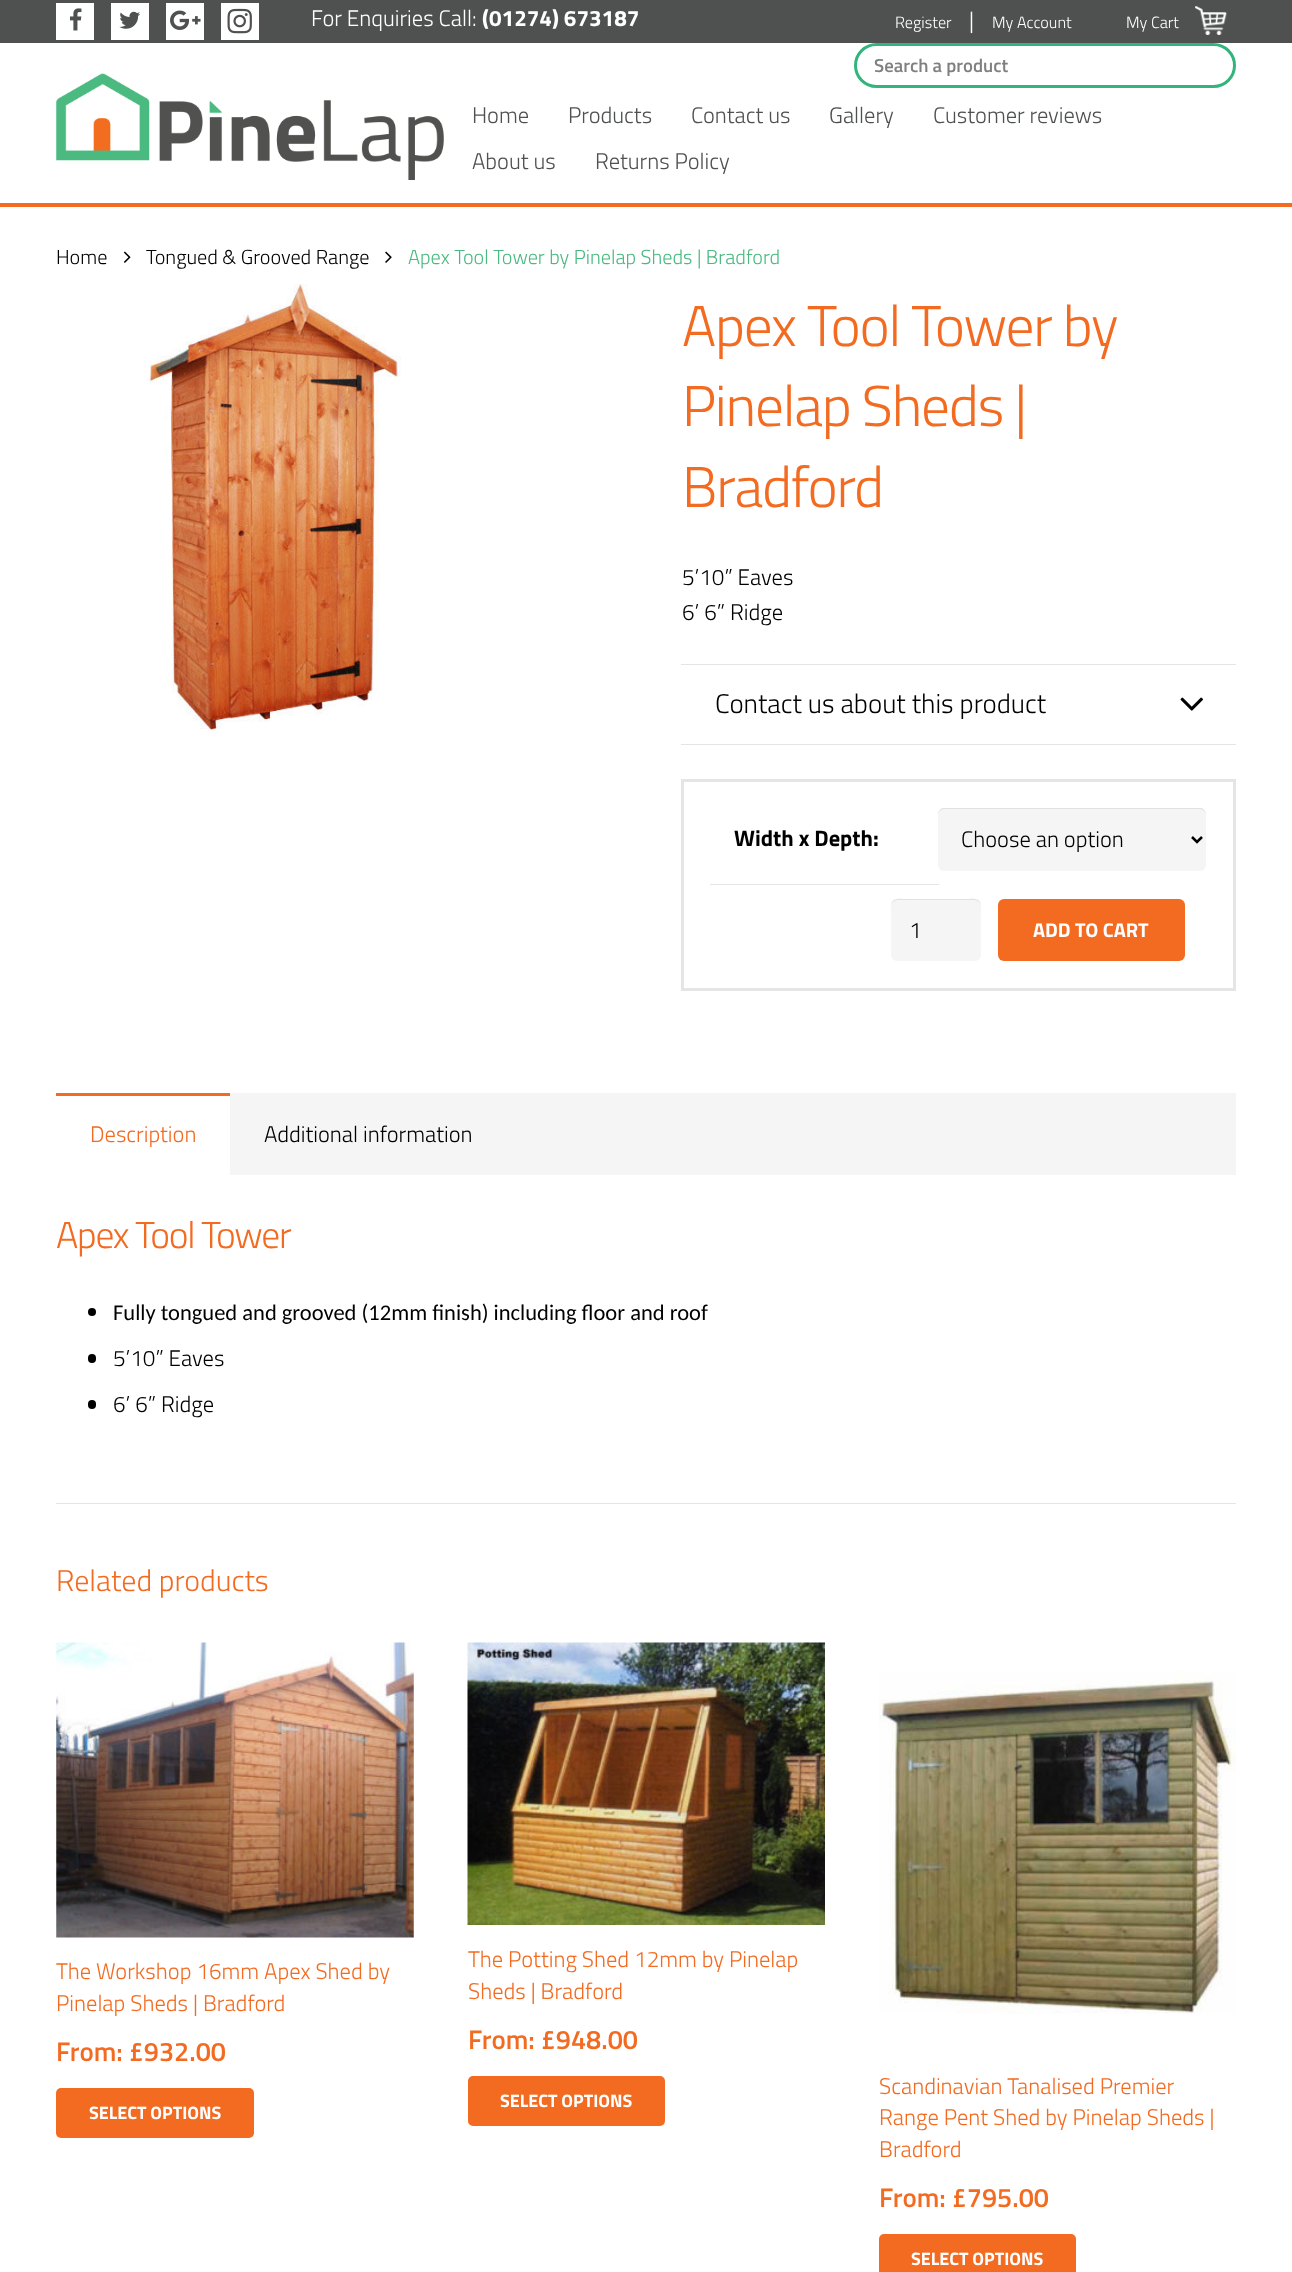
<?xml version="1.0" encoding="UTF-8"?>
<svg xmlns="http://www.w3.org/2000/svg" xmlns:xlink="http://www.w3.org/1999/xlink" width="1292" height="2272">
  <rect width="100%" height="100%" fill="#ffffff" />
  <rect width="1292" height="43" fill="#4f5050" />
  <rect x="56" y="3" width="38" height="37" fill="#ffffff" />
  <image x="70" y="8" width="12" height="23" xlink:href="image1.png" />
  <rect x="111" y="3" width="38" height="37" fill="#ffffff" />
  <image x="119" y="11" width="21" height="18" xlink:href="image2.png" />
  <rect x="166" y="3" width="38" height="37" fill="#ffffff" />
  <image x="170" y="10" width="31" height="20" xlink:href="image3.png" />
  <rect x="221" y="3" width="38" height="37" fill="#ffffff" />
  <image x="227" y="8" width="25" height="26" xlink:href="image4.png" />
  <image x="1195" y="6" width="32" height="29" xlink:href="image5.png" />
  <rect y="203" width="1292" height="4" fill="#f36b21" />
  <image x="56" y="73" width="388" height="107" xlink:href="image6.png" />
  <rect x="855.5" y="44.5" width="379" height="42" rx="21" fill="none" stroke="#32b47c" stroke-width="3" />
  <image x="123" y="251" width="8" height="12" xlink:href="image7.png" />
  <image x="385" y="251" width="7" height="12" xlink:href="image8.png" />
  <image x="149" y="284" width="252" height="448" xlink:href="image9.png" />
  <rect x="681" y="664" width="555" height="1" fill="#e5e5e5" />
  <rect x="681" y="744" width="555" height="1" fill="#e5e5e5" />
  <image x="1180" y="697" width="23" height="14" xlink:href="image10.png" />
  <rect x="682.5" y="780.5" width="552" height="209" fill="none" stroke="#e5e5e5" stroke-width="3" />
  <rect x="710" y="884" width="229" height="1" fill="#e5e5e5" />
  <rect x="938" y="808" width="268" height="63" rx="6" fill="#f5f5f5" />
  <path d="M 944 809 h 256 c 3 0 6 3 6 7 c 0 -3 -1 -7 -5 -8 h -258 c -4 1 -5 5 -5 8 c 0 -4 3 -7 6 -7 z" fill="#e1e1e1" />
  <path d="M 1192 837 l 5 5 l 5 -5" fill="none" stroke="#000000" stroke-width="2.5" />
  <rect x="891" y="899" width="90" height="62" rx="6" fill="#f5f5f5" />
  <path d="M 898 900 h 76 c 4 0 7 3 7 7 c 0 -11 -10 -8 -19 -8 h -52 c -9 0 -19 -3 -19 8 c 0 -4 3 -7 7 -7 z" fill="#e2e2e2" />
  <rect x="998" y="899" width="187" height="62" rx="6" fill="#f36b21" />
  <rect x="230" y="1093" width="1006" height="82" fill="#f5f5f5" />
  <rect x="56" y="1093" width="174" height="3" fill="#f36b21" />
  <circle cx="92" cy="1312" r="4" fill="#000000" />
  <rect x="88" y="1354" width="8" height="9" rx="4" fill="#000000" />
  <rect x="88" y="1400" width="8" height="9" rx="4" fill="#000000" />
  <rect x="56" y="1503" width="1180" height="1" fill="#e5e5e5" />
  <image x="56" y="1642" width="358" height="296" xlink:href="image11.png" />
  <rect x="56" y="2088" width="198" height="50" rx="5" fill="#f36b21" />
  <image x="467" y="1642" width="358" height="283" xlink:href="image12.png" />
  <rect x="468" y="2076" width="197" height="50" rx="5" fill="#f36b21" />
  <image x="879" y="1671" width="357" height="343" xlink:href="image13.png" />
  <rect x="879" y="2234" width="197" height="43" rx="5" fill="#f36b21" />
  <text x="311" y="26" style="font-family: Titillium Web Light; font-size: 22.5px; font-weight: 300; fill: #ffffff">For Enquiries Call:</text>
  <text x="482" y="26" style="font-family: Titillium Web; font-size: 22.5px; font-weight: bold; fill: #ffffff">(01274) 673187</text>
  <text x="895" y="28" style="font-family: Titillium Web Light; font-size: 16.25px; font-weight: 300; fill: #ffffff">Register</text>
  <text x="969" y="28" style="font-family: Titillium Web Light; font-size: 22.5px; font-weight: 300; fill: #ffffff">|</text>
  <text x="992" y="28" style="font-family: Titillium Web Light; font-size: 16.25px; font-weight: 300; fill: #ffffff">My Account</text>
  <text x="1126" y="28" style="font-family: Titillium Web Light; font-size: 16.25px; font-weight: 300; fill: #ffffff">My Cart</text>
  <text x="874" y="72" style="font-family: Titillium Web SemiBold; font-size: 18.75px; font-weight: 600; fill: #808080">Search a product</text>
  <text x="472" y="123" style="font-family: Titillium Web Light; font-size: 22.5px; font-weight: 300; fill: #4f5050">Home</text>
  <text x="568" y="123" style="font-family: Titillium Web Light; font-size: 22.5px; font-weight: 300; fill: #4f5050">Products</text>
  <text x="691" y="123" style="font-family: Titillium Web Light; font-size: 22.5px; font-weight: 300; fill: #4f5050">Contact us</text>
  <text x="829" y="123" style="font-family: Titillium Web Light; font-size: 22.5px; font-weight: 300; fill: #4f5050">Gallery</text>
  <text x="933" y="123" style="font-family: Titillium Web Light; font-size: 22.5px; font-weight: 300; fill: #4f5050">Customer reviews</text>
  <text x="472" y="169" style="font-family: Titillium Web Light; font-size: 22.5px; font-weight: 300; fill: #4f5050">About us</text>
  <text x="595" y="169" style="font-family: Titillium Web Light; font-size: 22.5px; font-weight: 300; fill: #4f5050">Returns Policy</text>
  <text x="56" y="264" style="font-family: Titillium Web Light; font-size: 20.25px; font-weight: 300; fill: #000000">Home</text>
  <text x="146" y="264" style="font-family: Titillium Web Light; font-size: 20.25px; font-weight: 300; fill: #000000">Tongued &amp; Grooved Range</text>
  <text x="408" y="264" style="font-family: Titillium Web Light; font-size: 20.25px; font-weight: 300; fill: #4aba81">Apex Tool Tower by Pinelap Sheds | Bradford</text>
  <text x="682" y="346" style="font-family: Titillium Web Light; font-size: 57.5px; font-weight: 300; letter-spacing: -1.25px; fill: #f36b21">Apex Tool Tower by</text>
  <text x="682" y="426" style="font-family: Titillium Web Light; font-size: 57.5px; font-weight: 300; letter-spacing: -1.25px; fill: #f36b21">Pinelap Sheds |</text>
  <text x="682" y="507" style="font-family: Titillium Web Light; font-size: 57.5px; font-weight: 300; letter-spacing: -1.25px; fill: #f36b21">Bradford</text>
  <text x="682" y="585" style="font-family: Titillium Web Light; font-size: 22.5px; font-weight: 300; fill: #000000">5’10” Eaves</text>
  <text x="682" y="620" style="font-family: Titillium Web Light; font-size: 22.5px; font-weight: 300; fill: #000000">6’ 6” Ridge</text>
  <text x="715" y="713" style="font-family: Titillium Web Light; font-size: 27px; font-weight: 300; fill: #000000">Contact us about this product</text>
  <text x="734" y="846" style="font-family: Titillium Web; font-size: 22.5px; font-weight: bold; fill: #000000">Width x Depth:</text>
  <text x="961" y="847" style="font-family: Titillium Web Light; font-size: 22.5px; font-weight: 300; fill: #000000">Choose an option</text>
  <text x="909" y="938" style="font-family: Titillium Web Light; font-size: 22.5px; font-weight: 300; fill: #000000">1</text>
  <text x="1033" y="937" style="font-family: Titillium Web; font-size: 20px; font-weight: bold; fill: #ffffff">ADD TO CART</text>
  <text x="90" y="1142" style="font-family: Titillium Web Light; font-size: 22.5px; font-weight: 300; fill: #f36b21">Description</text>
  <text x="264" y="1142" style="font-family: Titillium Web Light; font-size: 22.5px; font-weight: 300; fill: #000000">Additional information</text>
  <text x="56" y="1248" style="font-family: Titillium Web Light; font-size: 37.5px; font-weight: 300; letter-spacing: -1.25px; fill: #f36b21">Apex Tool Tower</text>
  <text x="113" y="1320" style="font-family: Carlito; font-size: 22.5px; fill: #000000">Fully tongued and grooved (12mm finish) including floor and roof</text>
  <text x="113" y="1366" style="font-family: Titillium Web Light; font-size: 22.5px; font-weight: 300; fill: #000000">5’10” Eaves</text>
  <text x="113" y="1412" style="font-family: Titillium Web Light; font-size: 22.5px; font-weight: 300; fill: #000000">6’ 6” Ridge</text>
  <text x="56" y="1591" style="font-family: Titillium Web Light; font-size: 30px; font-weight: 300; fill: #f36b21">Related products</text>
  <text x="56" y="1979" style="font-family: Titillium Web Light; font-size: 22.5px; font-weight: 300; fill: #f36b21">The Workshop 16mm Apex Shed by</text>
  <text x="56" y="2011" style="font-family: Titillium Web Light; font-size: 22.5px; font-weight: 300; fill: #f36b21">Pinelap Sheds | Bradford</text>
  <text x="56" y="2061" style="font-family: Titillium Web SemiBold; font-size: 27px; font-weight: 600; fill: #f36b21">From: £932.00</text>
  <text x="89" y="2119" style="font-family: Titillium Web; font-size: 18px; font-weight: bold; fill: #ffffff">SELECT OPTIONS</text>
  <text x="468" y="1967" style="font-family: Titillium Web Light; font-size: 22.5px; font-weight: 300; fill: #f36b21">The Potting Shed 12mm by Pinelap</text>
  <text x="468" y="1999" style="font-family: Titillium Web Light; font-size: 22.5px; font-weight: 300; fill: #f36b21">Sheds | Bradford</text>
  <text x="468" y="2049" style="font-family: Titillium Web SemiBold; font-size: 27px; font-weight: 600; fill: #f36b21">From: £948.00</text>
  <text x="500" y="2107" style="font-family: Titillium Web; font-size: 18px; font-weight: bold; fill: #ffffff">SELECT OPTIONS</text>
  <text x="879" y="2094" style="font-family: Titillium Web Light; font-size: 22.5px; font-weight: 300; fill: #f36b21">Scandinavian Tanalised Premier</text>
  <text x="879" y="2125" style="font-family: Titillium Web Light; font-size: 22.5px; font-weight: 300; fill: #f36b21">Range Pent Shed by Pinelap Sheds |</text>
  <text x="879" y="2157" style="font-family: Titillium Web Light; font-size: 22.5px; font-weight: 300; fill: #f36b21">Bradford</text>
  <text x="879" y="2207" style="font-family: Titillium Web SemiBold; font-size: 27px; font-weight: 600; fill: #f36b21">From: £795.00</text>
  <text x="911" y="2265" style="font-family: Titillium Web; font-size: 18px; font-weight: bold; fill: #ffffff">SELECT OPTIONS</text>
</svg>
